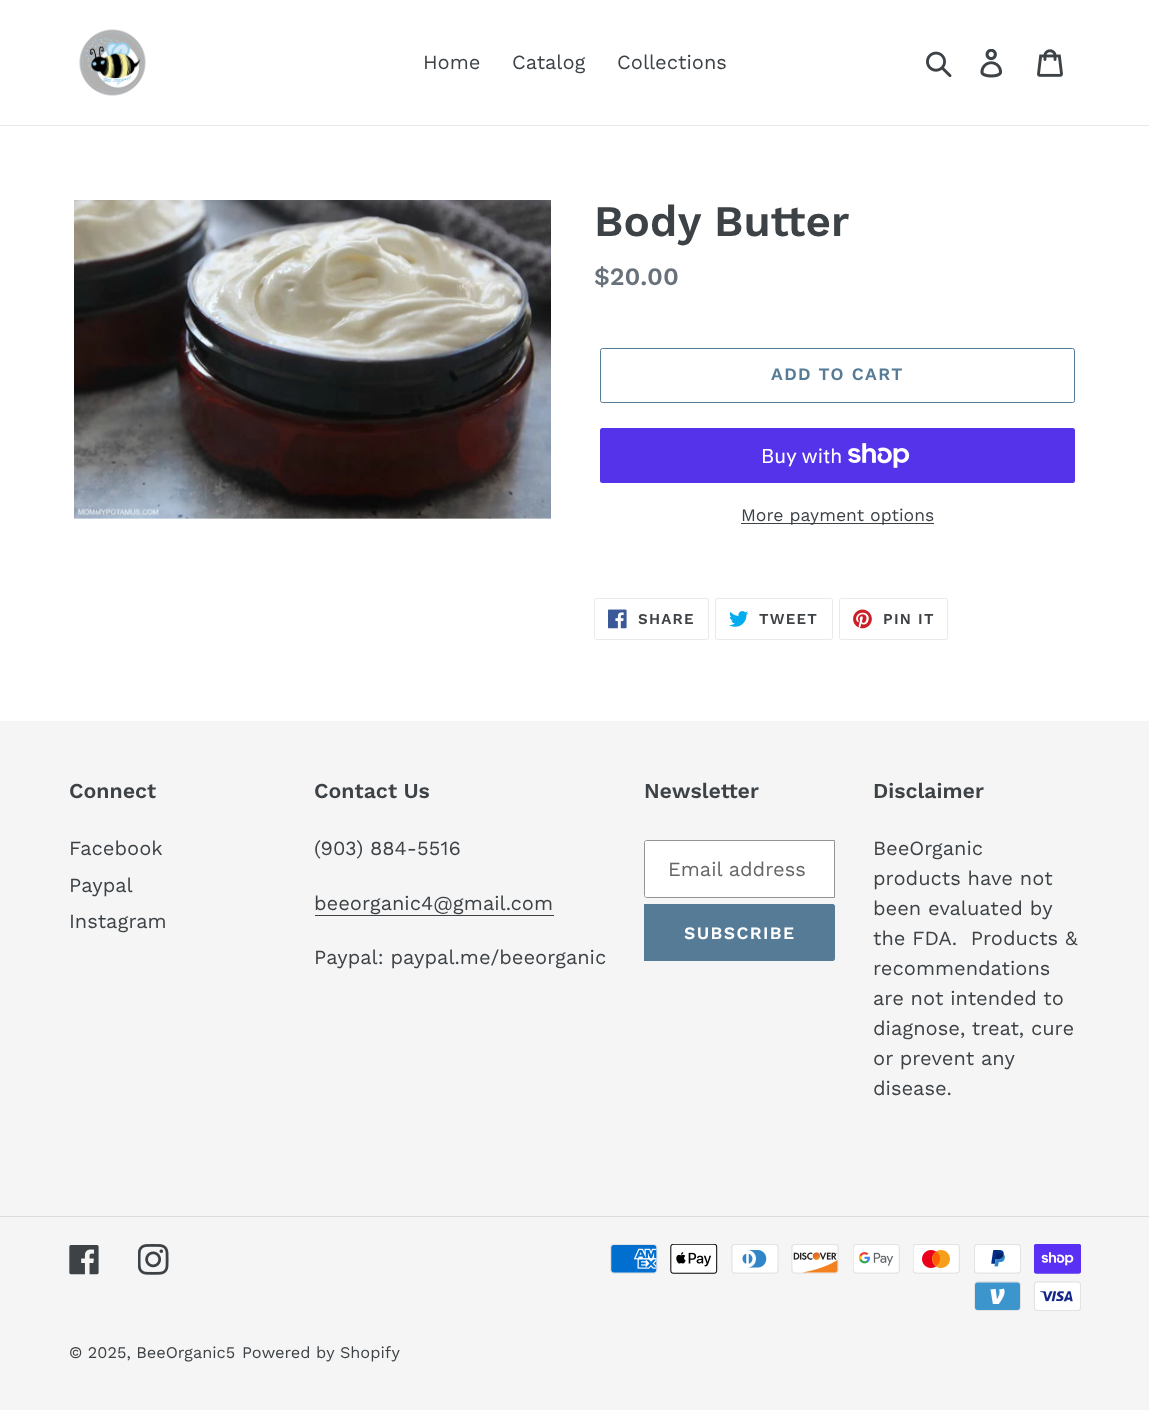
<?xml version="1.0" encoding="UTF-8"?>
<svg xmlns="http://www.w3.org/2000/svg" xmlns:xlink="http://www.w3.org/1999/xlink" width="1149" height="1424">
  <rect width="100%" height="100%" fill="#ffffff" />
  <rect y="125" width="1149" height="1" fill="#e8e9eb" />
  <image x="79" y="29" width="67" height="67" xlink:href="image1.png" />
  <image x="926" y="51" width="26" height="27" xlink:href="image2.png" />
  <image x="980" y="49" width="22" height="29" xlink:href="image3.png" />
  <image x="1037" y="49" width="26" height="28" xlink:href="image4.png" />
  <image x="74" y="200" width="477" height="319" xlink:href="image5.png" />
  <rect x="600.5" y="348.5" width="474" height="54" rx="2" fill="none" stroke="#557b97" />
  <rect x="600" y="428" width="475" height="55" rx="2.5" fill="#5433eb" />
  <image x="848" y="443" width="62" height="25" xlink:href="image6.png" />
  <rect x="741" y="523" width="193" height="1" fill="#3d4246" />
  <rect x="594.5" y="598.5" width="114" height="41" rx="2" fill="none" stroke="#e8e9eb" />
  <image x="608" y="609" width="19" height="20" xlink:href="image7.png" />
  <rect x="715.5" y="598.5" width="117" height="41" rx="2" fill="none" stroke="#e8e9eb" />
  <image x="729" y="611" width="20" height="16" xlink:href="image8.png" />
  <rect x="839.5" y="598.5" width="108" height="41" rx="2" fill="none" stroke="#e8e9eb" />
  <image x="853" y="609" width="19" height="20" xlink:href="image9.png" />
  <rect y="721" width="1149" height="689" fill="#f5f5f5" />
  <rect x="315" y="915" width="239" height="1" fill="#3d4246" />
  <path d="M 646.5 840.5 h 188 v 57 h -188 c -1 0 -2 -1 -2 -2 v -53 c 0 -1 1 -2 2 -2 z" fill="#ffffff" stroke="#949494" />
  <path d="M 644 904 h 188.5 c 1.5 0 2.5 1 2.5 2.5 v 52 c 0 1.5 -1 2.5 -2.5 2.5 h -188.5 z" fill="#557b97" />
  <rect y="1216" width="1149" height="1" fill="#dcdcdc" />
  <image x="69" y="1245" width="30" height="30" xlink:href="image10.png" />
  <image x="138" y="1244" width="31" height="31" xlink:href="image11.png" />
  <image x="610" y="1244" width="48" height="30" xlink:href="image12.png" />
  <image x="670" y="1244" width="48" height="30" xlink:href="image13.png" />
  <image x="731" y="1244" width="48" height="30" xlink:href="image14.png" />
  <image x="791" y="1244" width="48" height="30" xlink:href="image15.png" />
  <image x="853" y="1244" width="47" height="30" xlink:href="image16.png" />
  <image x="913" y="1244" width="47" height="30" xlink:href="image17.png" />
  <image x="974" y="1244" width="47" height="30" xlink:href="image18.png" />
  <image x="1034" y="1244" width="47" height="30" xlink:href="image19.png" />
  <image x="974" y="1281" width="47" height="30" xlink:href="image20.png" />
  <image x="1034" y="1281" width="47" height="30" xlink:href="image21.png" />
  <text x="423" y="69" style="font-family: Work Sans; font-size: 20px; fill: #3d4246">Home</text>
  <text x="512" y="69" style="font-family: Work Sans; font-size: 20px; fill: #3d4246">Catalog</text>
  <text x="617" y="69" style="font-family: Work Sans; font-size: 20px; fill: #3d4246">Collections</text>
  <text x="594" y="236" style="font-family: Work Sans; font-size: 43.75px; font-weight: 600; fill: #3d4246">Body Butter</text>
  <text x="594" y="285" style="font-family: Work Sans; font-size: 25px; font-weight: 600; fill: #69727b">$20.00</text>
  <text x="771" y="380" style="font-family: Work Sans; font-size: 17.5px; font-weight: 600; letter-spacing: 1.4px; fill: #557b97">ADD TO CART</text>
  <text x="761" y="463" style="font-family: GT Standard; font-size: 20px; fill: #ffffff">Buy with</text>
  <text x="741" y="521" style="font-family: Work Sans; font-size: 17.5px; fill: #3d4246">More payment options</text>
  <text x="638" y="624" style="font-family: Work Sans; font-size: 15px; font-weight: 600; letter-spacing: 1.25px; fill: #3d4246">SHARE</text>
  <text x="759" y="624" style="font-family: Work Sans; font-size: 15px; font-weight: 600; letter-spacing: 1.25px; fill: #3d4246">TWEET</text>
  <text x="883" y="624" style="font-family: Work Sans; font-size: 15px; font-weight: 600; letter-spacing: 1.25px; fill: #3d4246">PIN IT</text>
  <text x="69" y="798" style="font-family: Work Sans; font-size: 21.25px; font-weight: 600; fill: #3d4246">Connect</text>
  <text x="69" y="855" style="font-family: Work Sans; font-size: 20px; fill: #3d4246">Facebook</text>
  <text x="69" y="892" style="font-family: Work Sans; font-size: 20px; fill: #3d4246">Paypal</text>
  <text x="69" y="928" style="font-family: Work Sans; font-size: 20px; fill: #3d4246">Instagram</text>
  <text x="314" y="798" style="font-family: Work Sans; font-size: 21.25px; font-weight: 600; fill: #3d4246">Contact Us</text>
  <text x="314" y="855" style="font-family: Work Sans; font-size: 20px; fill: #3d4246">(903) 884-5516</text>
  <text x="314" y="910" style="font-family: Work Sans; font-size: 20px; fill: #3d4246">beeorganic4@gmail.com</text>
  <text x="314" y="964" style="font-family: Work Sans; font-size: 20px; fill: #3d4246">Paypal: paypal.me/beeorganic</text>
  <text x="644" y="798" style="font-family: Work Sans; font-size: 21.25px; font-weight: 600; fill: #3d4246">Newsletter</text>
  <text x="668" y="876" style="font-family: Work Sans; font-size: 20px; fill: #666666">Email address</text>
  <text x="684" y="939" style="font-family: Work Sans; font-size: 17.5px; font-weight: 600; letter-spacing: 1.4px; fill: #ffffff">SUBSCRIBE</text>
  <text x="873" y="798" style="font-family: Work Sans; font-size: 21.25px; font-weight: 600; fill: #3d4246">Disclaimer</text>
  <text x="873" y="855" style="font-family: Work Sans; font-size: 20px; fill: #3d4246">BeeOrganic</text>
  <text x="873" y="885" style="font-family: Work Sans; font-size: 20px; fill: #3d4246">products have not</text>
  <text x="873" y="915" style="font-family: Work Sans; font-size: 20px; fill: #3d4246">been evaluated by</text>
  <text x="873" y="945" style="font-family: Work Sans; font-size: 20px; fill: #3d4246" xml:space="preserve">the FDA.  Products &amp;</text>
  <text x="873" y="975" style="font-family: Work Sans; font-size: 20px; fill: #3d4246">recommendations</text>
  <text x="873" y="1005" style="font-family: Work Sans; font-size: 20px; fill: #3d4246">are not intended to</text>
  <text x="873" y="1035" style="font-family: Work Sans; font-size: 20px; fill: #3d4246">diagnose, treat, cure</text>
  <text x="873" y="1065" style="font-family: Work Sans; font-size: 20px; fill: #3d4246">or prevent any</text>
  <text x="873" y="1095" style="font-family: Work Sans; font-size: 20px; fill: #3d4246">disease.</text>
  <text x="69" y="1358" style="font-family: Work Sans; font-size: 16.25px; fill: #3d4246">© 2025, BeeOrganic5</text>
  <text x="242" y="1358" style="font-family: Work Sans; font-size: 16.25px; fill: #3d4246">Powered by Shopify</text>
</svg>
